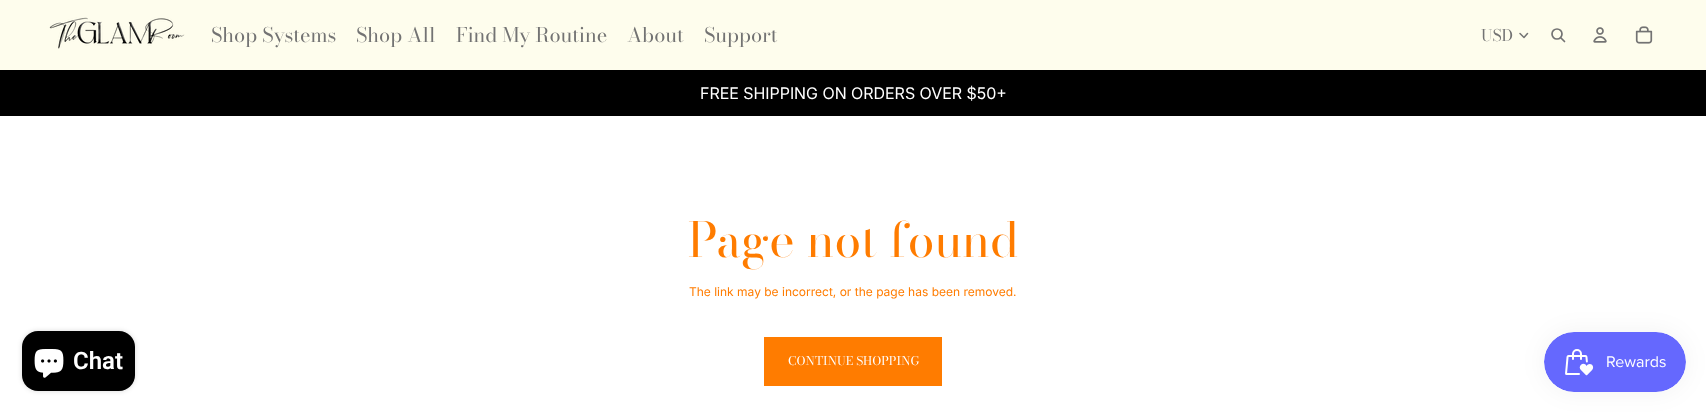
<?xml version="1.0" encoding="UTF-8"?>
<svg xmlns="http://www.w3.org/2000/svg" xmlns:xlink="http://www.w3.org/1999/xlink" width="1706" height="412">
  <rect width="100%" height="100%" fill="#ffffff" />
  <rect width="1706" height="70" fill="#fefded" />
  <image x="49" y="17" width="136" height="32" xlink:href="image1.png" />
  <path d="M 1527.5 33.5 l -3.5 4 l -4 -4" fill="none" stroke="#737373" stroke-width="1.5" stroke-linecap="round" stroke-linejoin="round" />
  <circle cx="1557" cy="34" r="5" fill="none" stroke="#737373" stroke-width="1.7" />
  <path d="M 1561 38 l 3.5 3.5" fill="none" stroke="#737373" stroke-width="1.7" stroke-linecap="round" stroke-linejoin="round" />
  <image x="1593" y="27" width="14" height="16" xlink:href="image2.png" />
  <image x="1635" y="26" width="18" height="18" xlink:href="image3.png" />
  <rect y="70" width="1706" height="46" fill="#000000" />
  <rect x="22" y="331" width="113" height="60" rx="16" fill="#000000" fill-opacity="0.15" filter="blur(2.5px)" />
  <rect x="22" y="331" width="113" height="60" rx="16" fill="#000000" />
  <image x="34" y="349" width="30" height="29" xlink:href="image4.png" />
  <rect x="764" y="337" width="178" height="49" fill="#ff7c00" />
  <rect x="1544" y="332" width="142" height="60" rx="30" fill="#000000" fill-opacity="0.05" filter="blur(12.5px)" />
  <image x="1544" y="332" width="142" height="60" xlink:href="image5.png" />
  <text x="211" y="42" style="font-family: 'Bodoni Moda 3'; font-size: 20px; fill: #737373">Shop Systems</text>
  <text x="356" y="42" style="font-family: 'Bodoni Moda 3'; font-size: 20px; fill: #737373">Shop All</text>
  <text x="456" y="42" style="font-family: 'Bodoni Moda 3'; font-size: 20px; fill: #737373">Find My Routine</text>
  <text x="627" y="42" style="font-family: 'Bodoni Moda 3'; font-size: 20px; fill: #737373">About</text>
  <text x="704" y="42" style="font-family: 'Bodoni Moda 3'; font-size: 20px; fill: #737373">Support</text>
  <text x="1481" y="41" style="font-family: 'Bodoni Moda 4'; font-size: 16px; fill: #737373">USD</text>
  <text x="700" y="99" style="font-family: Inter; font-size: 16px; fill: #ffffff">FREE SHIPPING ON ORDERS OVER $50+</text>
  <text x="73" y="369" style="font-family: Roboto; font-size: 24px; font-weight: 600; fill: #ffffff">Chat</text>
  <text x="688" y="257" style="font-family: Bodoni Moda; font-size: 48px; fill: #ff7c00">Page not found</text>
  <text x="689" y="296" style="font-family: 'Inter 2'; font-size: 12px; fill: #ff7c00">The link may be incorrect, or the page has been removed.</text>
  <text x="788" y="365" style="font-family: 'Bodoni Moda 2'; font-size: 12px; fill: #ffffff">CONTINUE SHOPPING</text>
</svg>
